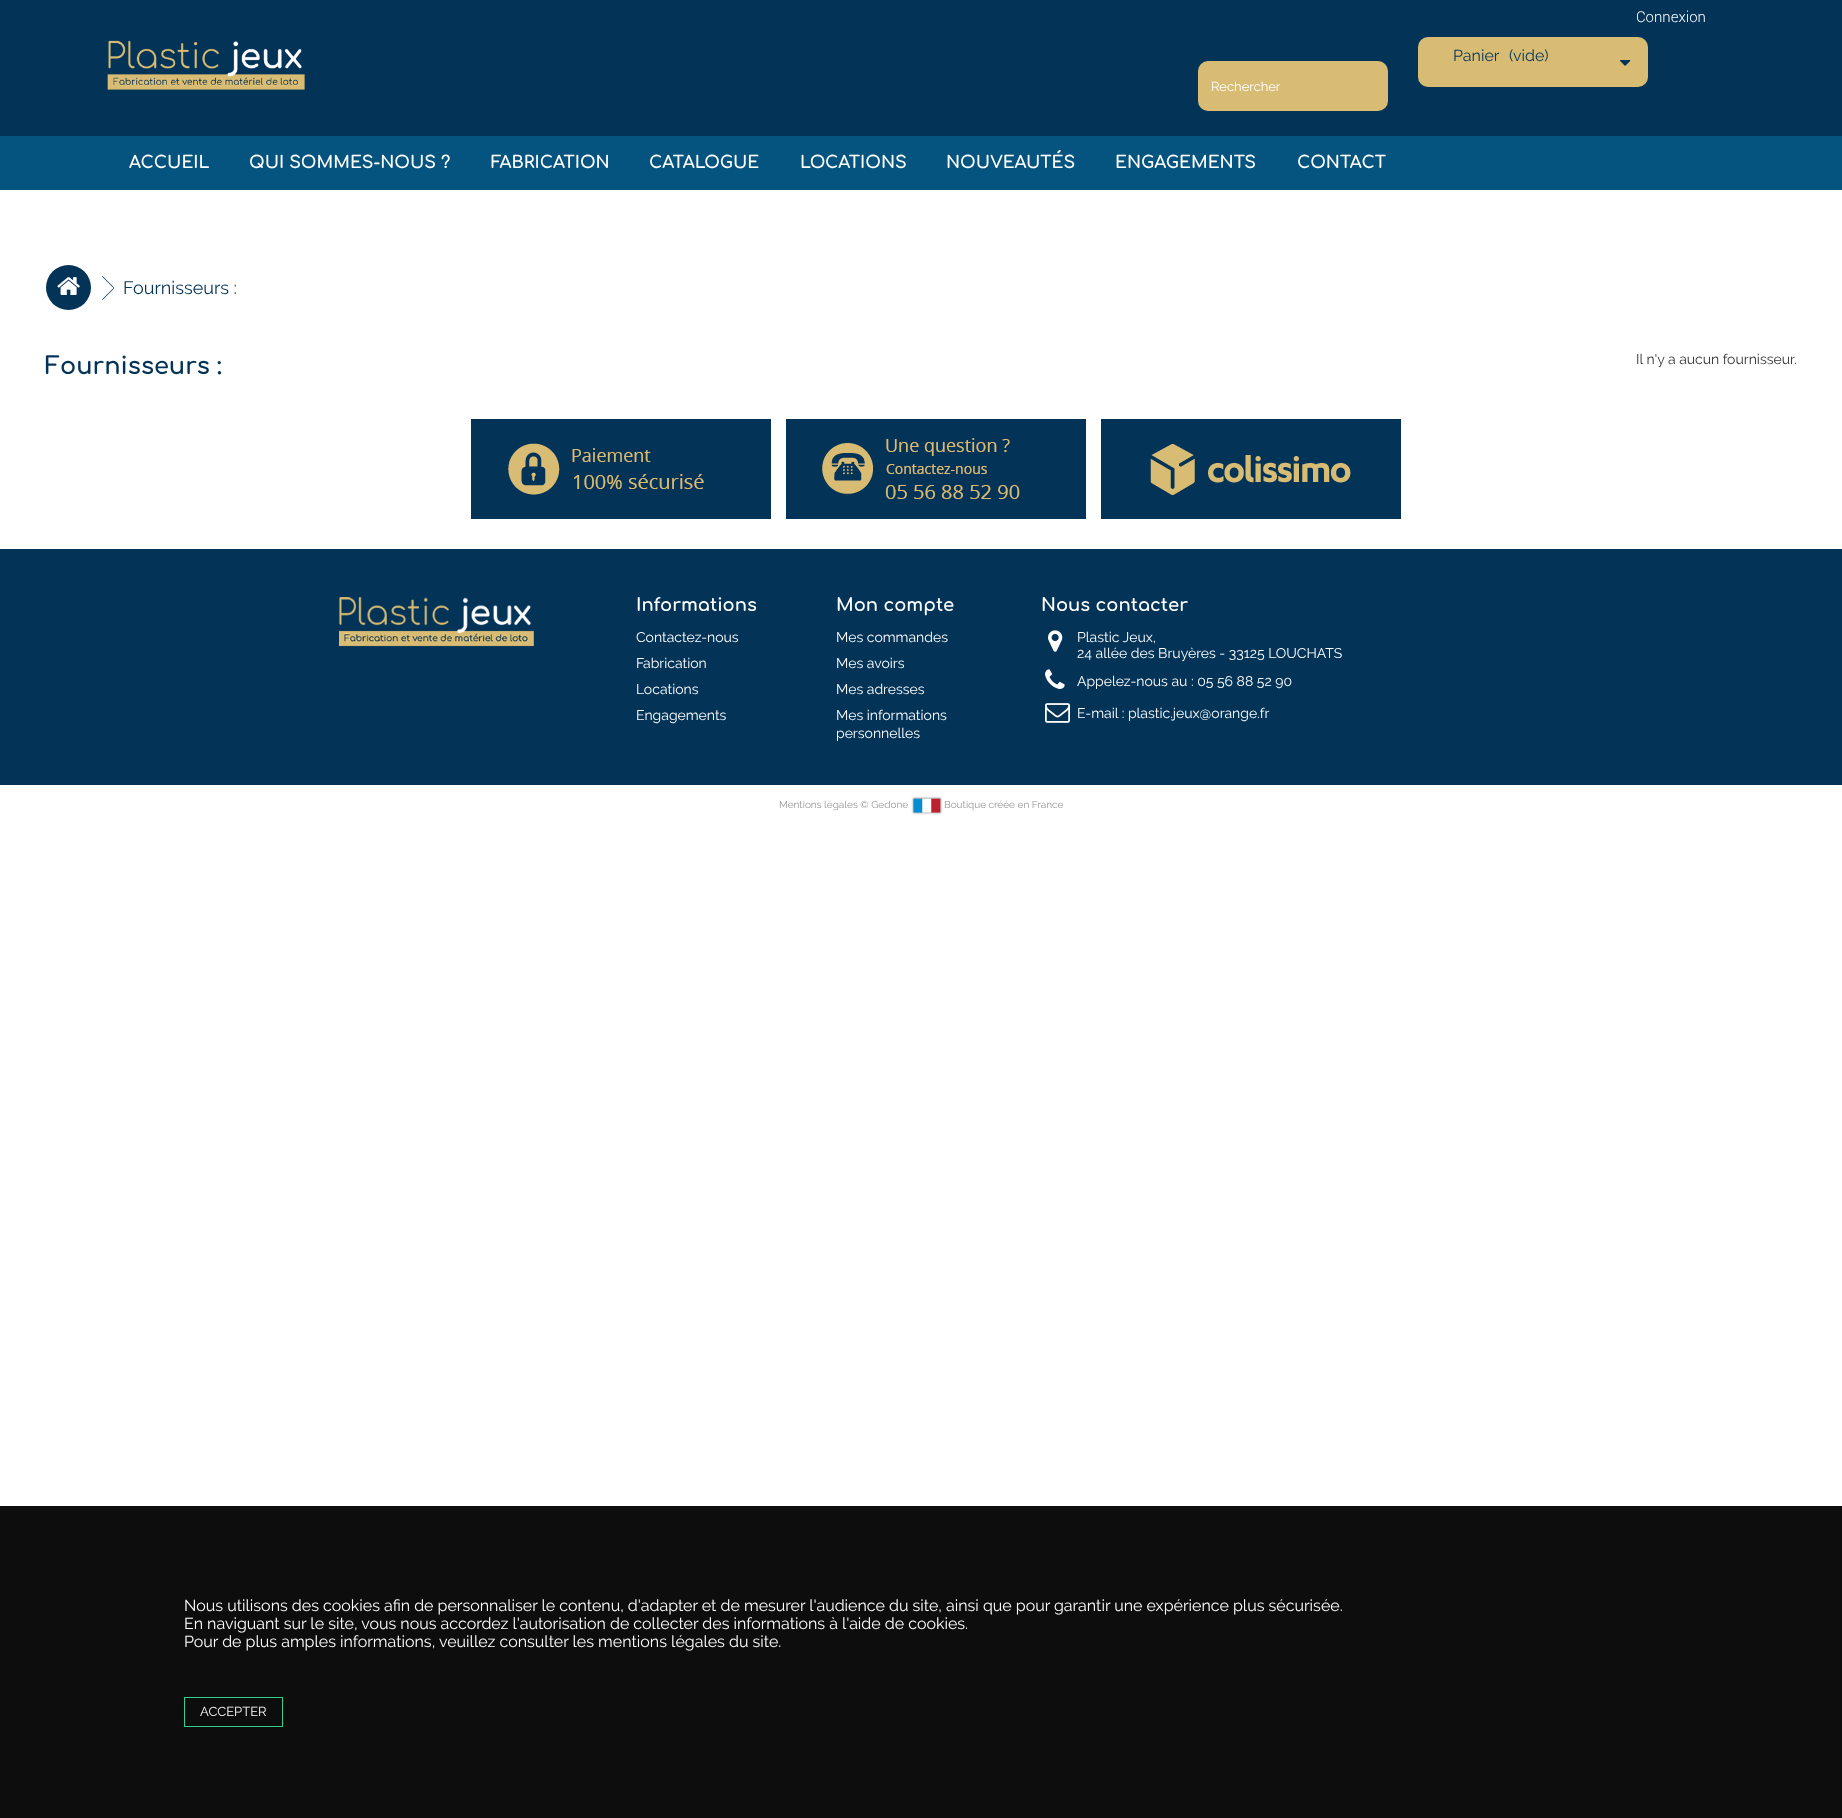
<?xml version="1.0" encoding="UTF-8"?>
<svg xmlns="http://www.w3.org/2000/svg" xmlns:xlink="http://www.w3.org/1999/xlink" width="1842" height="1818">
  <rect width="100%" height="100%" fill="#ffffff" />
  <rect width="1842" height="136" fill="#033357" />
  <image x="107" y="40" width="198" height="50" xlink:href="image1.png" />
  <rect x="1418" y="37" width="230" height="50" rx="10" fill="#d8bc73" />
  <image x="1620" y="60" width="11" height="6" xlink:href="image2.png" />
  <rect x="1198" y="61" width="190" height="50" rx="10" fill="#d8bc73" />
  <rect y="136" width="1842" height="54" fill="#05547f" />
  <circle cx="68.5" cy="287.5" r="22.5" fill="#033357" />
  <image x="57" y="277" width="23" height="18" xlink:href="image3.png" />
  <path d="M 102.5 276 l 11.5 11.5 l -0.5 0.5 l -11.5 -11.5 z m 11 12 l 0.5 0.5 l -11.5 11.5 l -0.5 -0.5 z" fill="#033357" />
  <image x="471" y="419" width="300" height="100" xlink:href="image4.png" />
  <image x="786" y="419" width="300" height="100" xlink:href="image5.png" />
  <image x="1101" y="419" width="300" height="100" xlink:href="image6.png" />
  <rect y="549" width="1842" height="236" fill="#033357" />
  <image x="339" y="597" width="195" height="50" xlink:href="image7.png" />
  <image x="1048" y="630" width="15" height="22" xlink:href="image8.png" />
  <image x="1045" y="669" width="20" height="20" xlink:href="image9.png" />
  <image x="1045" y="703" width="25" height="20" xlink:href="image10.png" />
  <image x="911" y="796" width="32" height="19" xlink:href="image11.png" />
  <rect y="1506" width="1842" height="312" fill="#0d0d0d" />
  <rect x="184.5" y="1697.5" width="98" height="29" fill="none" stroke="#37cd8f" />
  <text x="1636" y="22" style="font-family: Roboto; font-size: 15px; font-weight: 300; fill: #ffffff">Connexion</text>
  <text x="1453" y="61" style="font-family: Raleway; font-size: 16px; fill: #033357">Panier</text>
  <text x="1509" y="61" style="font-family: Raleway; font-size: 16px; fill: #033357">(vide)</text>
  <text x="1211" y="91" style="font-family: Raleway; font-size: 13px; fill: #ffffff">Rechercher</text>
  <text x="129" y="168" style="font-family: Comfortaa; font-size: 17px; font-weight: bold; fill: #ffffff">ACCUEIL</text>
  <text x="249" y="168" style="font-family: Comfortaa; font-size: 17px; font-weight: bold; fill: #ffffff">QUI SOMMES-NOUS ?</text>
  <text x="491" y="168" style="font-family: Comfortaa; font-size: 17px; font-weight: bold; fill: #ffffff">FABRICATION</text>
  <text x="649" y="168" style="font-family: Comfortaa; font-size: 17px; font-weight: bold; fill: #ffffff">CATALOGUE</text>
  <text x="800" y="168" style="font-family: Comfortaa; font-size: 17px; font-weight: bold; fill: #ffffff">LOCATIONS</text>
  <text x="946" y="168" style="font-family: Comfortaa; font-size: 17px; font-weight: bold; fill: #ffffff">NOUVEAUTÉS</text>
  <text x="1115" y="168" style="font-family: Comfortaa; font-size: 17px; font-weight: bold; fill: #ffffff">ENGAGEMENTS</text>
  <text x="1297" y="168" style="font-family: Comfortaa; font-size: 17px; font-weight: bold; fill: #ffffff">CONTACT</text>
  <text x="123" y="294" style="font-family: Raleway; font-size: 18px; fill: #033357">Fournisseurs :</text>
  <text x="45" y="374" style="font-family: Comfortaa; font-size: 24px; font-weight: bold; fill: #033357">Fournisseurs :</text>
  <text x="1636" y="364" style="font-family: Raleway; font-size: 14px; fill: #333333">Il n'y a aucun fournisseur.</text>
  <text x="636" y="611" style="font-family: Comfortaa; font-size: 18px; font-weight: bold; fill: #ffffff">Informations</text>
  <text x="636" y="642" style="font-family: Raleway; font-size: 14px; fill: #ffffff">Contactez-nous</text>
  <text x="636" y="668" style="font-family: Raleway; font-size: 14px; fill: #ffffff">Fabrication</text>
  <text x="636" y="694" style="font-family: Raleway; font-size: 14px; fill: #ffffff">Locations</text>
  <text x="636" y="720" style="font-family: Raleway; font-size: 14px; fill: #ffffff">Engagements</text>
  <text x="836" y="611" style="font-family: Comfortaa; font-size: 18px; font-weight: bold; fill: #ffffff">Mon compte</text>
  <text x="836" y="642" style="font-family: Raleway; font-size: 14px; fill: #ffffff">Mes commandes</text>
  <text x="836" y="668" style="font-family: Raleway; font-size: 14px; fill: #ffffff">Mes avoirs</text>
  <text x="836" y="694" style="font-family: Raleway; font-size: 14px; fill: #ffffff">Mes adresses</text>
  <text x="836" y="720" style="font-family: Raleway; font-size: 14px; fill: #ffffff">Mes informations</text>
  <text x="836" y="738" style="font-family: Raleway; font-size: 14px; fill: #ffffff">personnelles</text>
  <text x="1041" y="611" style="font-family: Comfortaa; font-size: 18px; font-weight: bold; fill: #ffffff">Nous contacter</text>
  <text x="1077" y="642" style="font-family: Raleway; font-size: 14px; fill: #ffffff">Plastic Jeux,</text>
  <text x="1077" y="658" style="font-family: Raleway; font-size: 14px; fill: #ffffff">24 allée des Bruyères - 33125 LOUCHATS</text>
  <text x="1077" y="686" style="font-family: Raleway; font-size: 14px; fill: #ffffff">Appelez-nous au : 05 56 88 52 90</text>
  <text x="1077" y="718" style="font-family: Raleway; font-size: 14px; fill: #ffffff">E-mail : plastic.jeux@orange.fr</text>
  <text x="779" y="808" style="font-family: Raleway; font-size: 10px; fill: #999999">Mentions légales © Gedone</text>
  <text x="944" y="808" style="font-family: Raleway; font-size: 10px; fill: #999999">Boutique créée en France</text>
  <text x="184" y="1611" style="font-family: Raleway; font-size: 16px; fill: #ffffff">Nous utilisons des cookies afin de personnaliser le contenu, d'adapter et de mesurer l'audience du site, ainsi que pour garantir une expérience plus sécurisée.</text>
  <text x="184" y="1629" style="font-family: Raleway; font-size: 16px; fill: #ffffff">En naviguant sur le site, vous nous accordez l'autorisation de collecter des informations à l'aide de cookies.</text>
  <text x="184" y="1647" style="font-family: Raleway; font-size: 16px; fill: #ffffff">Pour de plus amples informations, veuillez consulter les mentions légales du site.</text>
  <text x="200" y="1716" style="font-family: Raleway; font-size: 13px; fill: #ffffff">ACCEPTER</text>
</svg>
